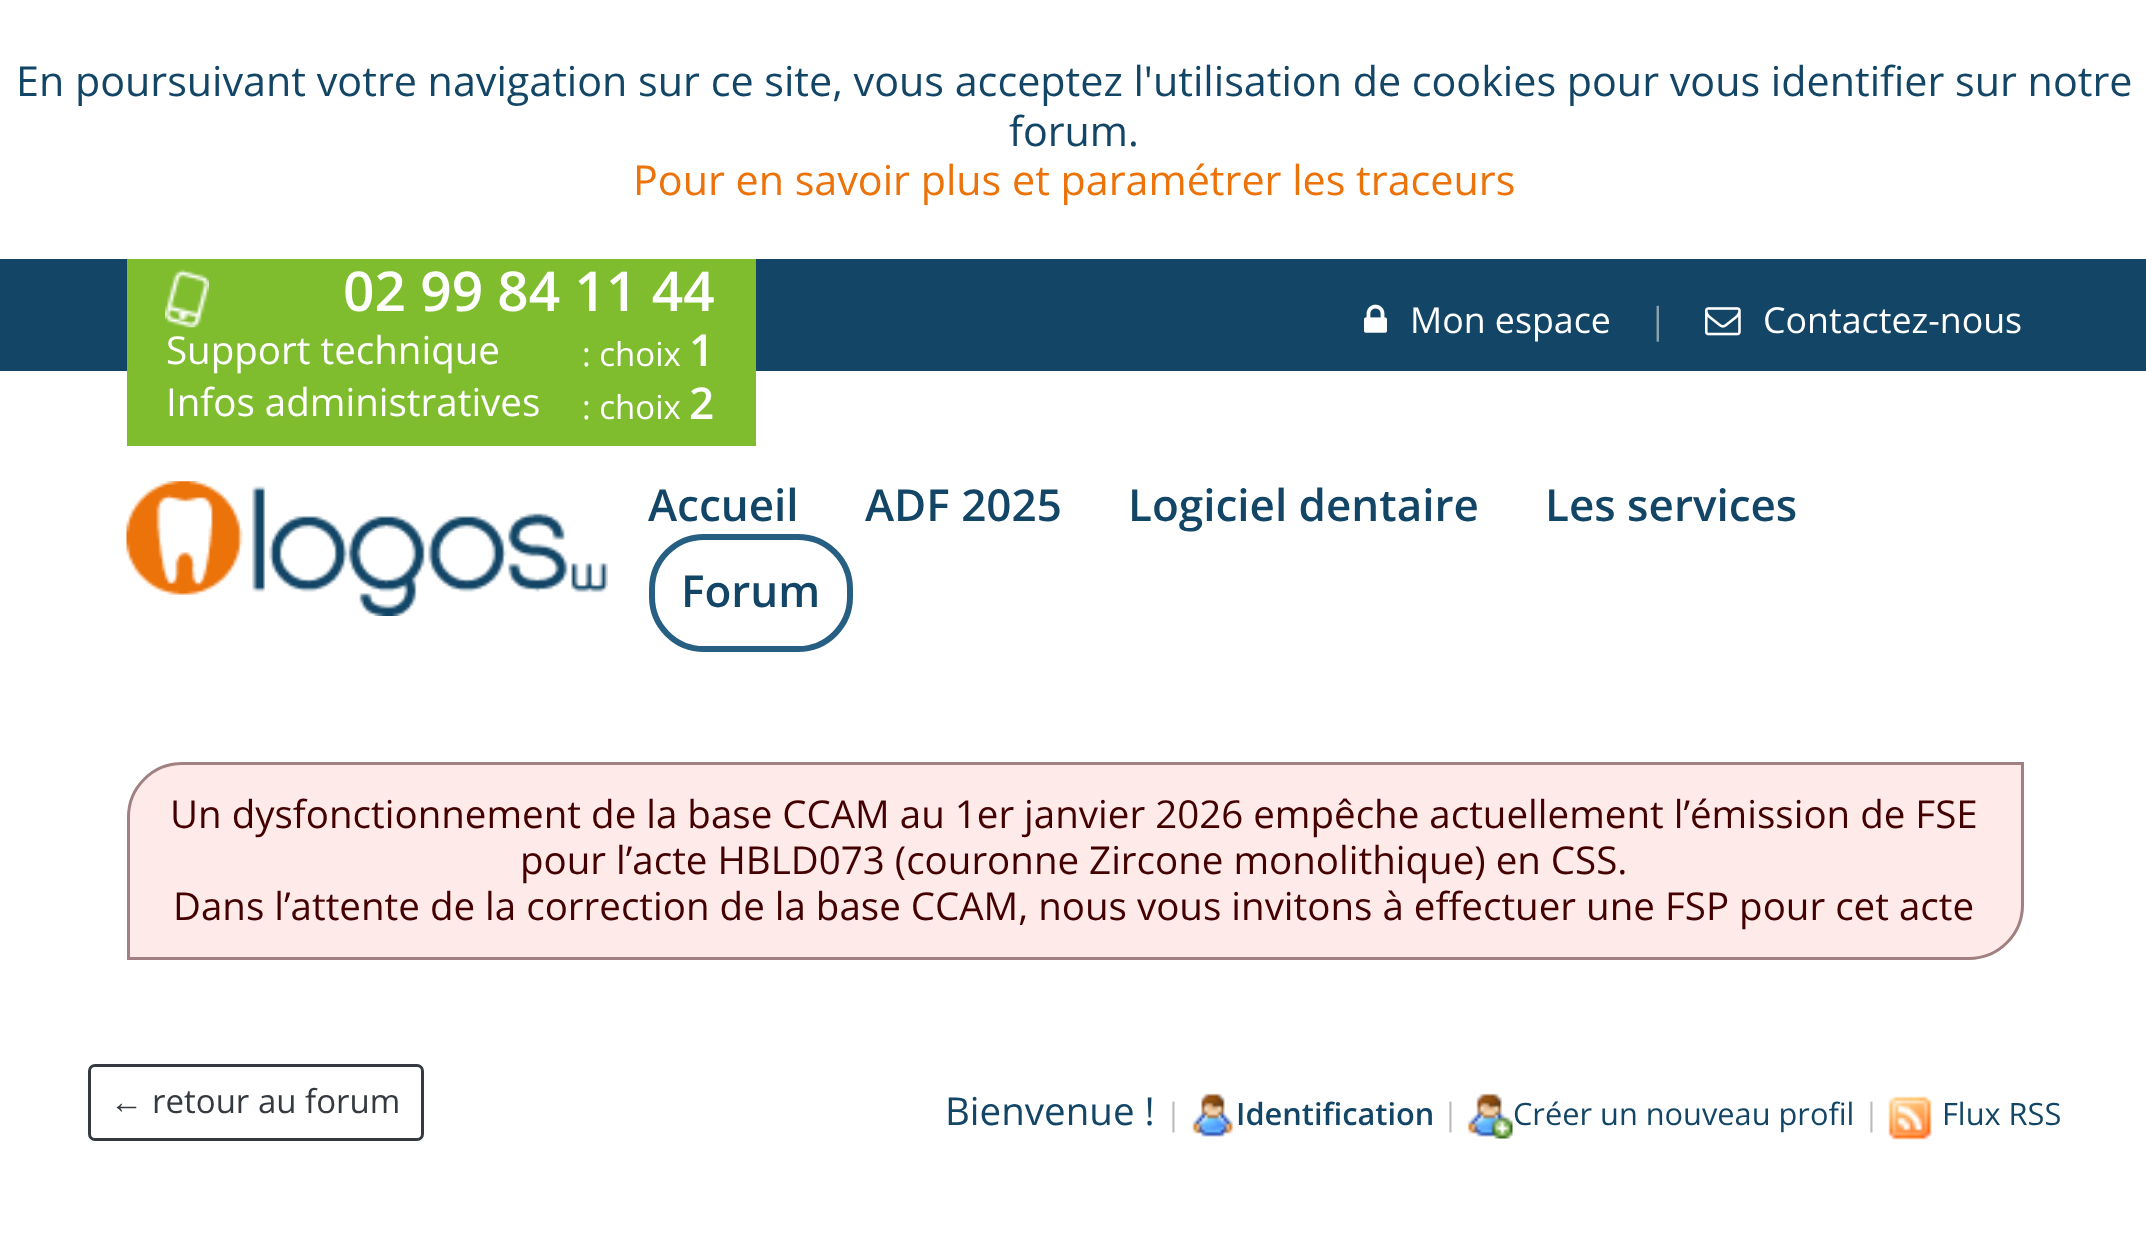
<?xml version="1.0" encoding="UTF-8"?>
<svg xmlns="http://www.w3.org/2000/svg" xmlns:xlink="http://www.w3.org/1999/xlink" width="2146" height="1255">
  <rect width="100%" height="100%" fill="#ffffff" />
  <rect y="259" width="2146" height="112" fill="#134666" />
  <rect x="127" y="259" width="629" height="187" fill="#7fbd2f" />
  <image x="165" y="269" width="44" height="59" xlink:href="image1.png" />
  <image x="1364" y="304" width="23" height="29" xlink:href="image2.png" />
  <image x="1705" y="307" width="36" height="29" xlink:href="image3.png" />
  <image x="126" y="481" width="482" height="135" xlink:href="image4.png" />
  <rect x="652" y="537" width="198" height="112" rx="52" fill="none" stroke="#265f82" stroke-width="6" />
  <path d="M 182 763.5 h 1840.5 v 141.5 c 0 29.5 -24 53.5 -53.5 53.5 h -1840.5 v -141.5 c 0 -29.5 24 -53.5 53.5 -53.5 z" fill="#ffeaea" stroke="#a08080" stroke-width="3" />
  <rect x="89.5" y="1065.5" width="333" height="74" rx="5.5" fill="none" stroke="#343a40" stroke-width="3" />
  <image x="1192" y="1093" width="41" height="44" xlink:href="image5.png" />
  <image x="1467" y="1093" width="46" height="46" xlink:href="image6.png" />
  <image x="1888" y="1096" width="44" height="44" xlink:href="image7.png" />
  <text x="16" y="96" style="font-family: Open Sans; font-size: 41.25px; fill: #134666">En poursuivant votre navigation sur ce site, vous acceptez l'utilisation de cookies pour vous identifier sur notre</text>
  <text x="1009" y="146" style="font-family: Open Sans; font-size: 41.25px; fill: #134666">forum.</text>
  <text x="633" y="195" style="font-family: Open Sans; font-size: 41.25px; fill: #ec720a">Pour en savoir plus et paramétrer les traceurs</text>
  <text x="343" y="311" style="font-family: Open Sans; font-size: 55px; font-weight: 600; fill: #ffffff">02 99 84 11 44</text>
  <text x="166" y="364" style="font-family: Open Sans; font-size: 38.5px; fill: #ffffff">Support technique</text>
  <text x="582" y="366" style="font-family: Open Sans; font-size: 33px; fill: #ffffff">: choix</text>
  <text x="689" y="366" style="font-family: Open Sans; font-size: 44px; font-weight: 600; fill: #ffffff">1</text>
  <text x="166" y="416" style="font-family: Open Sans; font-size: 38.5px; fill: #ffffff">Infos administratives</text>
  <text x="582" y="419" style="font-family: Open Sans; font-size: 33px; fill: #ffffff">: choix</text>
  <text x="689" y="419" style="font-family: Open Sans; font-size: 44px; font-weight: 600; fill: #ffffff">2</text>
  <text x="1410" y="333" style="font-family: Open Sans; font-size: 35.75px; fill: #ffffff">Mon espace</text>
  <text x="1648" y="333" style="font-family: Open Sans; font-size: 35.75px; fill: #8ba0ad">|</text>
  <text x="1763" y="333" style="font-family: Open Sans; font-size: 35.75px; fill: #ffffff">Contactez-nous</text>
  <text x="648" y="521" style="font-family: Open Sans; font-size: 44px; font-weight: 600; fill: #134666">Accueil</text>
  <text x="865" y="521" style="font-family: Open Sans; font-size: 44px; font-weight: 600; fill: #134666">ADF 2025</text>
  <text x="1128" y="521" style="font-family: Open Sans; font-size: 44px; font-weight: 600; fill: #134666">Logiciel dentaire</text>
  <text x="1545" y="521" style="font-family: Open Sans; font-size: 44px; font-weight: 600; fill: #134666">Les services</text>
  <text x="681" y="607" style="font-family: Open Sans; font-size: 44px; font-weight: 600; fill: #134666">Forum</text>
  <text x="170" y="828" style="font-family: Open Sans; font-size: 38.5px; fill: #440000">Un dysfonctionnement de la base CCAM au 1er janvier 2026 empêche actuellement l’émission de FSE</text>
  <text x="520" y="874" style="font-family: Open Sans; font-size: 38.5px; fill: #440000">pour l’acte HBLD073 (couronne Zircone monolithique) en CSS.</text>
  <text x="173" y="920" style="font-family: Open Sans; font-size: 38.5px; fill: #440000">Dans l’attente de la correction de la base CCAM, nous vous invitons à effectuer une FSP pour cet acte</text>
  <text x="110" y="1113" style="font-family: Liberation Sans; font-size: 33px; fill: #343a40">←</text>
  <text x="152" y="1113" style="font-family: Open Sans; font-size: 33px; fill: #343a40">retour au forum</text>
  <text x="945" y="1125" style="font-family: Open Sans; font-size: 38.5px; fill: #134666">Bienvenue !</text>
  <text x="1165" y="1125" style="font-family: Open Sans; font-size: 30.75px; fill: #bbbbbb">|</text>
  <text x="1236" y="1125" style="font-family: Open Sans; font-size: 30.75px; font-weight: 600; fill: #134666">Identification</text>
  <text x="1442" y="1125" style="font-family: Open Sans; font-size: 30.75px; fill: #bbbbbb">|</text>
  <text x="1513" y="1125" style="font-family: Open Sans; font-size: 30.75px; fill: #134666">Créer un nouveau profil</text>
  <text x="1863" y="1125" style="font-family: Open Sans; font-size: 30.75px; fill: #bbbbbb">|</text>
  <text x="1942" y="1125" style="font-family: Open Sans; font-size: 30.75px; fill: #134666">Flux RSS</text>
</svg>
